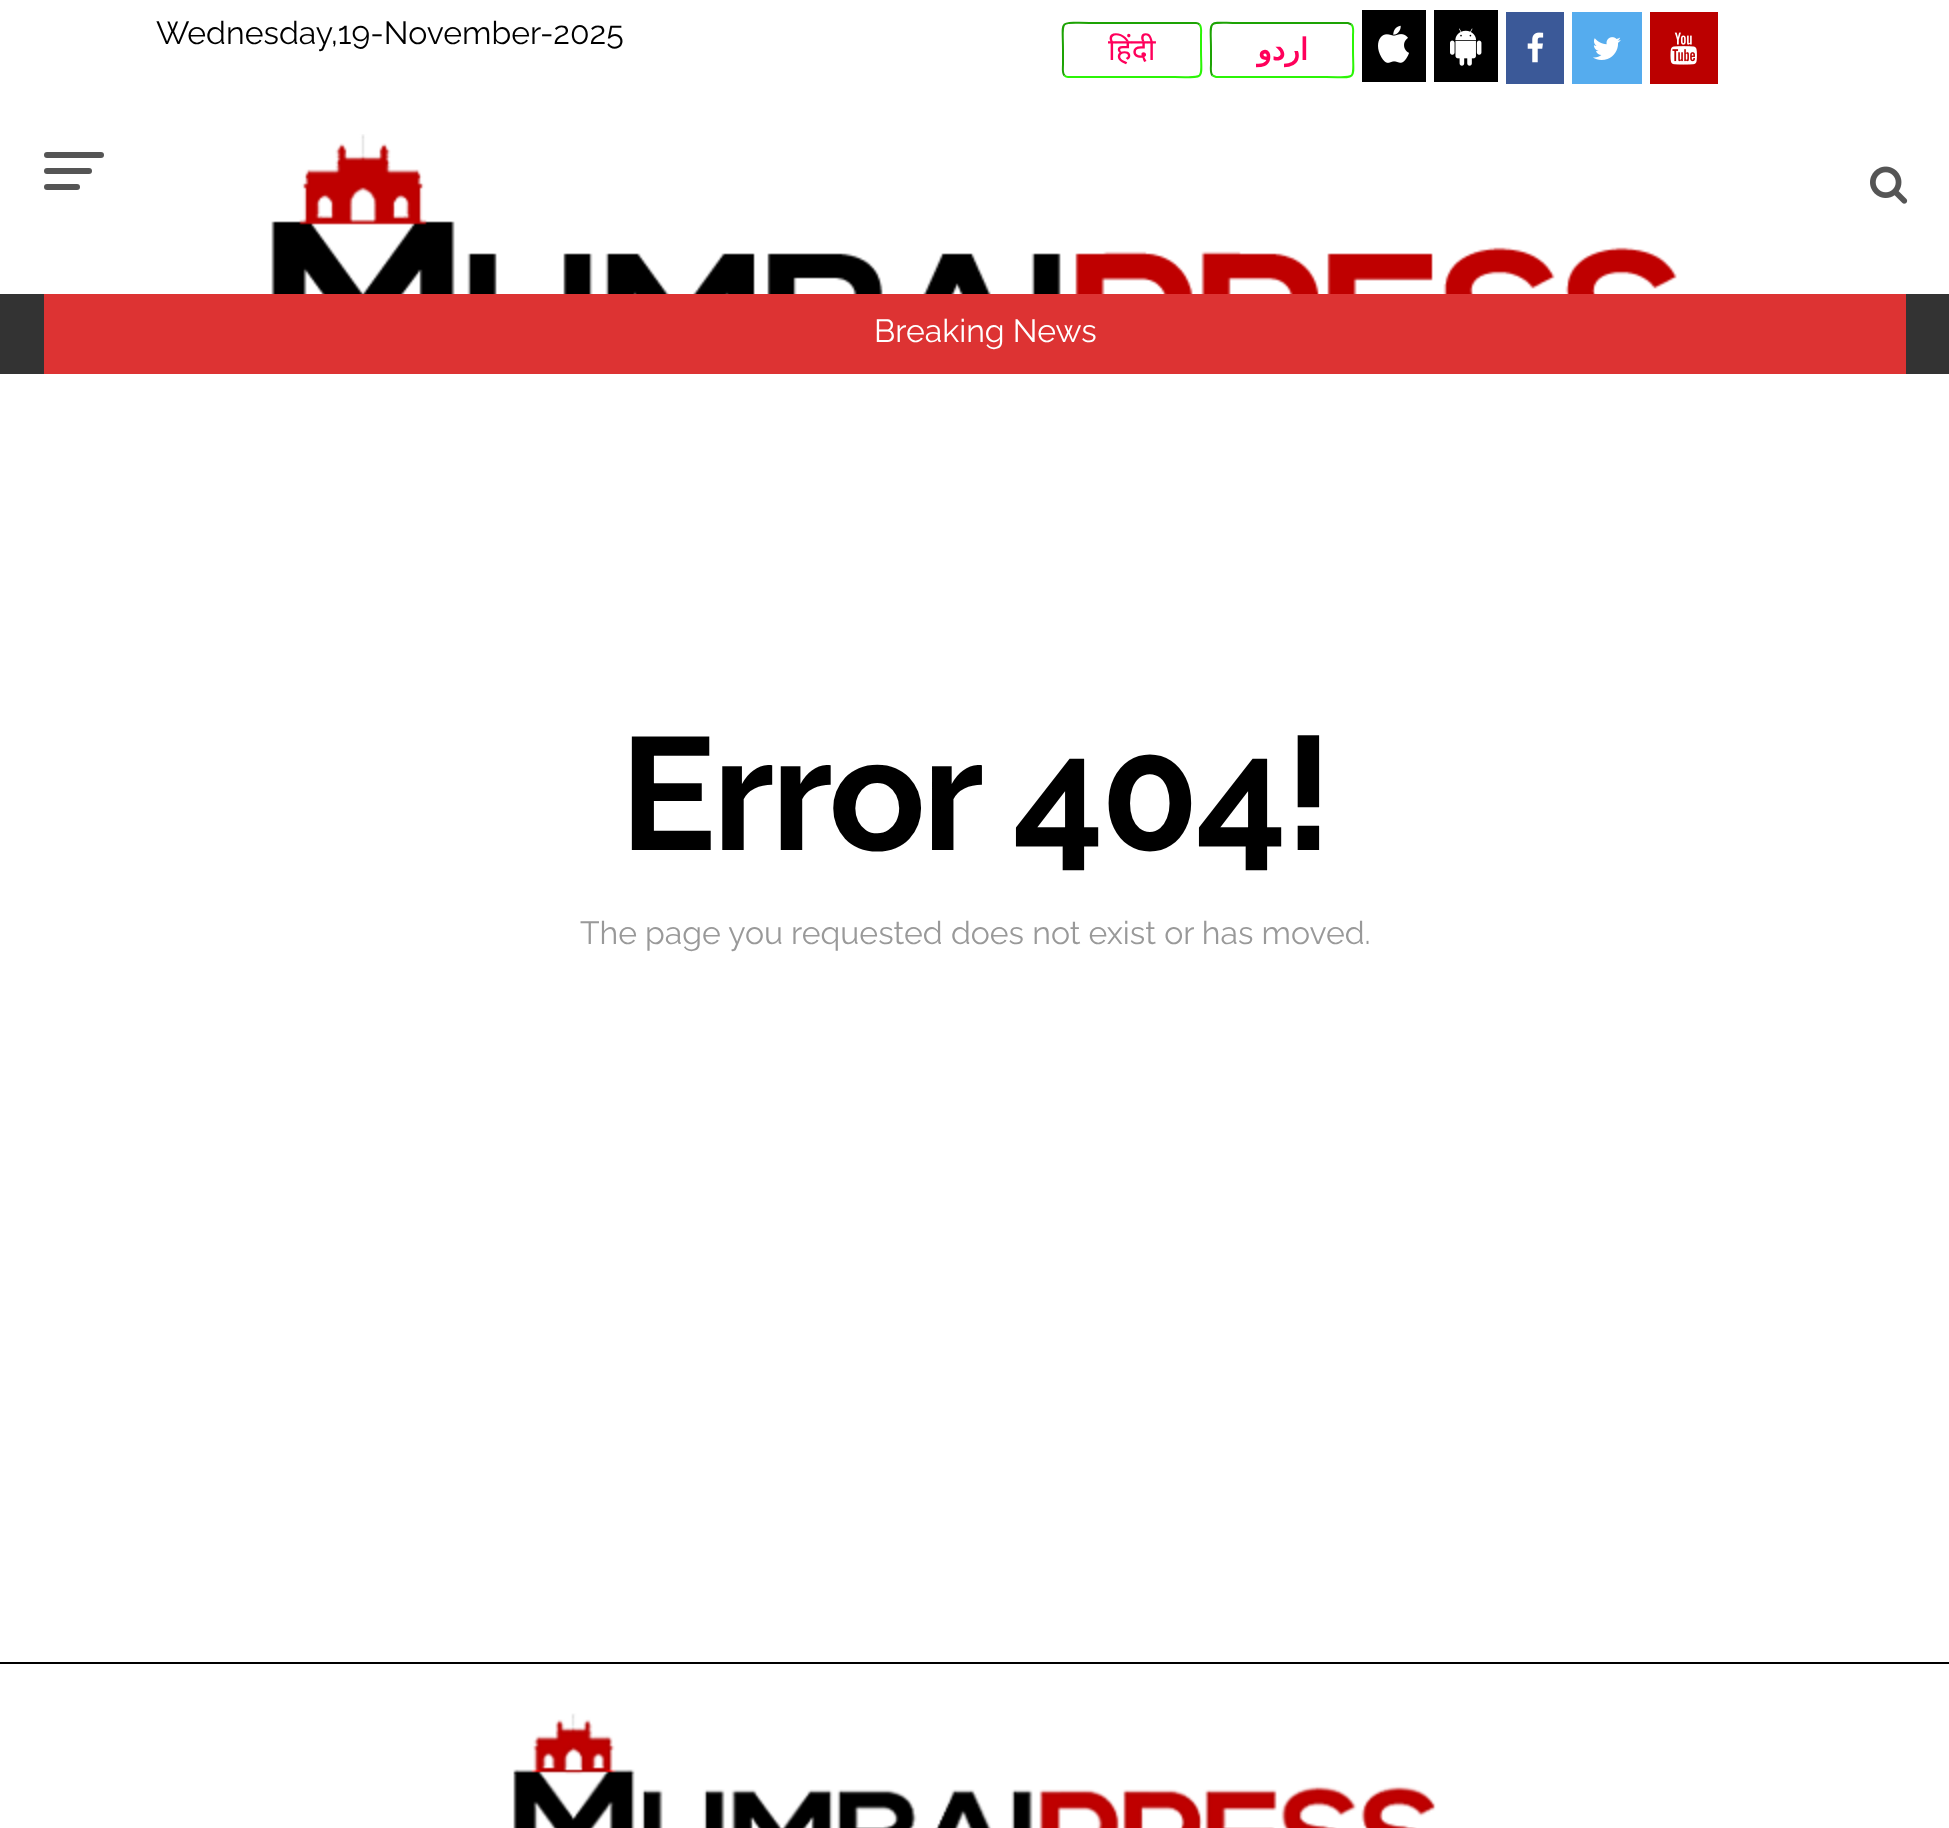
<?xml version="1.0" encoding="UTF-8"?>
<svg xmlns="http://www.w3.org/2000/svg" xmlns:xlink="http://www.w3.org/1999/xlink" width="1949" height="1828">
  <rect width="100%" height="100%" fill="#ffffff" />
  <path d="M 1199.5 24.5 c 2.5 2.5 1.5 8 1.5 11 v 14.5 c 0 31.5 5.5 27 -26.5 27 h -106.5 c -1.5 0 -2.5 -0.5 -3.5 -1.5" fill="none" stroke="#2bf506" stroke-width="2" />
  <path d="M 1064.5 75.5 c -2.5 -2.5 -1.5 -8 -1.5 -11 v -14.5 c 0 -31.5 -5.5 -27 26.5 -27 h 106.5 c 1.5 0 2.5 0.5 3.5 1.5" fill="none" stroke="#1da304" stroke-width="2" />
  <path d="M 1351.5 24.5 c 2.5 2.5 1.5 8 1.5 11 v 14.5 c 0 32 5.5 27 -27 27 h -110 l -3.5 -1.5" fill="none" stroke="#2bf506" stroke-width="2" />
  <path d="M 1212.5 75.5 c -2.5 -2.5 -1.5 -8 -1.5 -11 v -14.5 c 0 -32 -5.5 -27 27 -27 h 110 l 3.5 1.5" fill="none" stroke="#1da304" stroke-width="2" />
  <rect x="1362" y="10" width="64" height="72" fill="#000000" />
  <image x="1378" y="25" width="31" height="38" xlink:href="image1.png" />
  <rect x="1434" y="10" width="64" height="72" fill="#000000" />
  <image x="1450" y="28" width="32" height="38" xlink:href="image2.png" />
  <rect x="1506" y="12" width="58" height="72" fill="#3b5998" />
  <image x="1527" y="32" width="17" height="31" xlink:href="image3.png" />
  <rect x="1572" y="12" width="70" height="72" fill="#55acee" />
  <image x="1593" y="37" width="28" height="23" xlink:href="image4.png" />
  <rect x="1650" y="12" width="68" height="72" fill="#bb0000" />
  <image x="1670" y="32" width="27" height="33" xlink:href="image5.png" />
  <rect x="44" y="152" width="60" height="6" rx="3" fill="#555555" />
  <rect x="44" y="168" width="48" height="6" rx="3" fill="#555555" />
  <rect x="44" y="184" width="36" height="6" rx="3" fill="#555555" />
  <image x="271" y="134" width="1406" height="160" xlink:href="image6.png" />
  <image x="1870" y="166" width="38" height="38" xlink:href="image7.png" />
  <rect y="294" width="1949" height="80" fill="#333333" />
  <rect x="44" y="294" width="1862" height="80" fill="#dd3333" />
  <rect y="1662" width="1949" height="2" fill="#000000" />
  <image x="513" y="1713" width="923" height="115" xlink:href="image8.png" />
  <text x="156" y="44" style="font-family: Raleway; font-size: 32px; fill: #000000">Wednesday,19-November-2025</text>
  <text x="1108" y="60" style="font-family: Noto Sans; font-size: 30px; fill: #ff005b">हिंदी</text>
  <text x="1308" y="60" style="font-family: DejaVu Sans; font-size: 30px; font-weight: bold; direction: rtl; fill: #ff005b">اردو</text>
  <text x="874" y="342" style="font-family: Raleway; font-size: 32px; fill: #ffffff">Breaking News</text>
  <text x="620" y="850" style="font-family: Raleway; font-size: 160px; font-weight: bold; letter-spacing: -3.25px; fill: #000000">Error 404!</text>
  <text x="580" y="944" style="font-family: Raleway; font-size: 32px; fill: #999999">The page you requested does not exist or has moved.</text>
</svg>
